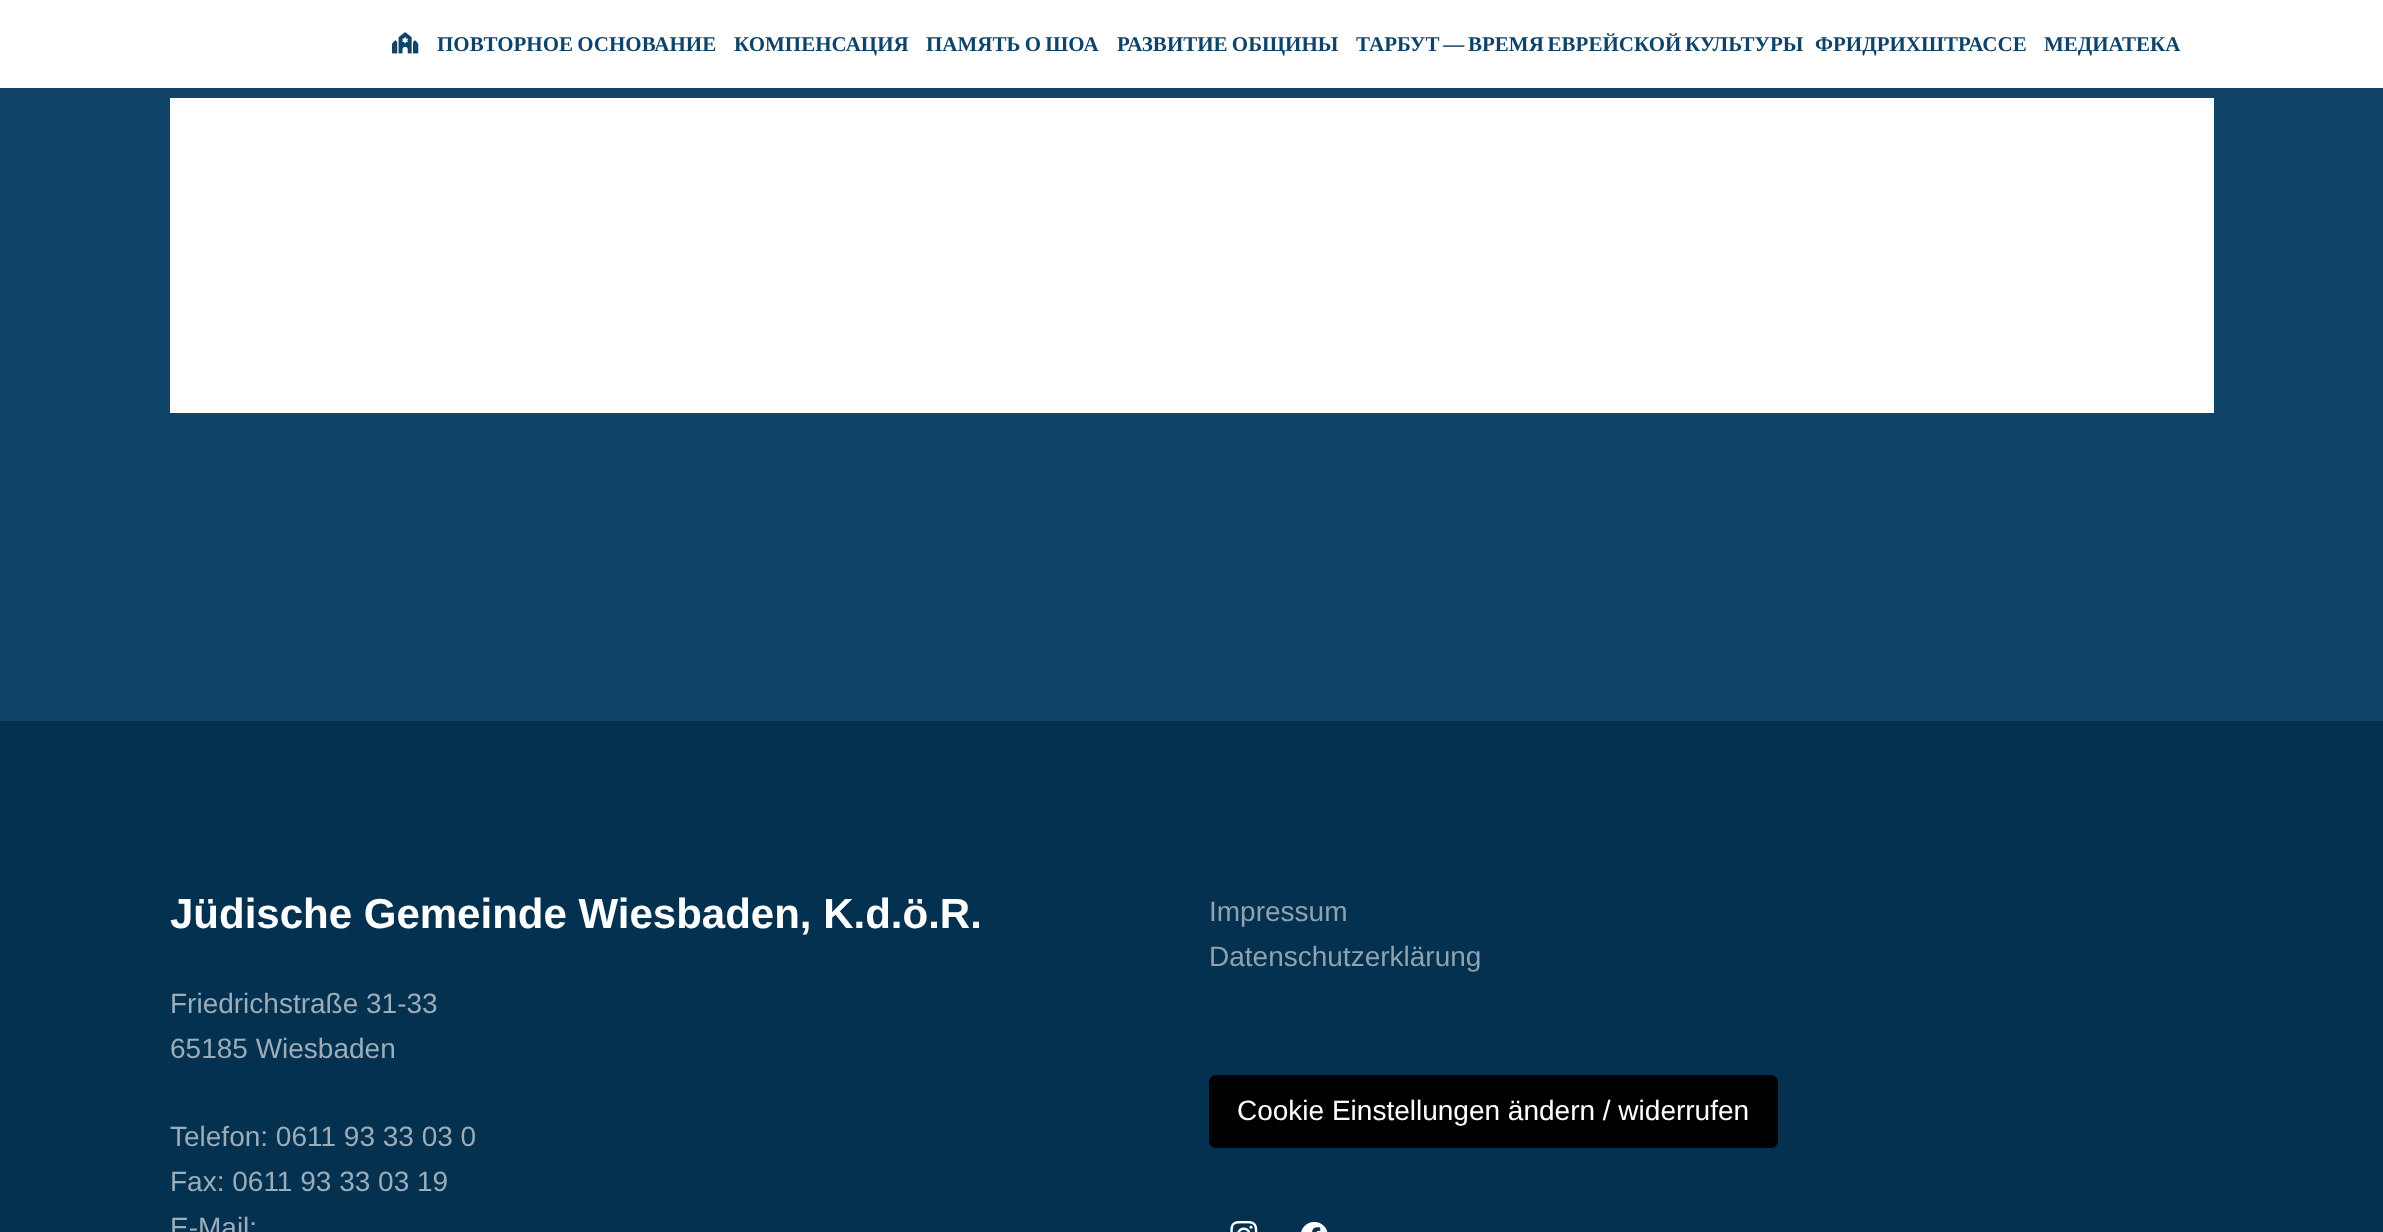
<?xml version="1.0" encoding="UTF-8"?>
<svg xmlns="http://www.w3.org/2000/svg" xmlns:xlink="http://www.w3.org/1999/xlink" width="2383" height="1232">
  <rect width="100%" height="100%" fill="#0f4468" />
  <path d="M 0 88 v 1 h 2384 v -87 v 86 z" fill="#0e3f60" />
  <rect width="2383" height="88" fill="#ffffff" />
  <image x="392" y="32" width="27" height="22" xlink:href="image1.png" />
  <rect x="170" y="98" width="2044" height="315" fill="#ffffff" />
  <rect y="721" width="2383" height="511" fill="#04314f" />
  <rect x="1209" y="1075" width="569" height="73" rx="7" fill="#000000" />
  <image x="1230" y="1221" width="28" height="11" xlink:href="image2.png" />
  <image x="1301" y="1221" width="27" height="11" xlink:href="image3.png" />
  <text x="437" y="51" word-spacing="-1" style="font-family: Liberation Serif; font-size: 21px; font-weight: bold; fill: #0f4468">ПОВТОРНОЕ ОСНОВАНИЕ</text>
  <text x="734" y="51" style="font-family: Liberation Serif; font-size: 21px; font-weight: bold; fill: #0f4468">КОМПЕНСАЦИЯ</text>
  <text x="926" y="51" word-spacing="-1" style="font-family: Liberation Serif; font-size: 21px; font-weight: bold; fill: #0f4468">ПАМЯТЬ О ШОА</text>
  <text x="1117" y="51" word-spacing="-1" style="font-family: Liberation Serif; font-size: 21px; font-weight: bold; fill: #0f4468">РАЗВИТИЕ ОБЩИНЫ</text>
  <text x="1356" y="51" word-spacing="-1.5" style="font-family: Liberation Serif; font-size: 21px; font-weight: bold; fill: #0f4468">ТАРБУТ — ВРЕМЯ ЕВРЕЙСКОЙ КУЛЬТУРЫ</text>
  <text x="1815" y="51" style="font-family: Liberation Serif; font-size: 21px; font-weight: bold; fill: #0f4468">ФРИДРИХШТРАССЕ</text>
  <text x="2044" y="51" style="font-family: Liberation Serif; font-size: 21px; font-weight: bold; fill: #0f4468">МЕДИАТЕКА</text>
  <text x="170" y="928" style="font-family: Liberation Sans; font-size: 42px; font-weight: bold; fill: #ffffff">Jüdische Gemeinde Wiesbaden, K.d.ö.R.</text>
  <text x="170" y="1013" style="font-family: Liberation Sans; font-size: 28px; fill: #9badb9">Friedrichstraße 31-33</text>
  <text x="170" y="1058" style="font-family: Liberation Sans; font-size: 28px; fill: #9badb9">65185 Wiesbaden</text>
  <text x="170" y="1146" style="font-family: Liberation Sans; font-size: 28px; fill: #9badb9">Telefon: 0611 93 33 03 0</text>
  <text x="170" y="1191" style="font-family: Liberation Sans; font-size: 28px; fill: #9badb9">Fax: 0611 93 33 03 19</text>
  <text x="170" y="1237" style="font-family: Liberation Sans; font-size: 28px; fill: #9badb9">E-Mail:</text>
  <text x="1209" y="921" style="font-family: Liberation Sans; font-size: 28px; fill: #8ea2b0">Impressum</text>
  <text x="1209" y="966" style="font-family: Liberation Sans; font-size: 28px; fill: #8ea2b0">Datenschutzerklärung</text>
  <text x="1237" y="1120" style="font-family: Liberation Sans; font-size: 28px; fill: #ffffff">Cookie Einstellungen ändern / widerrufen</text>
</svg>
